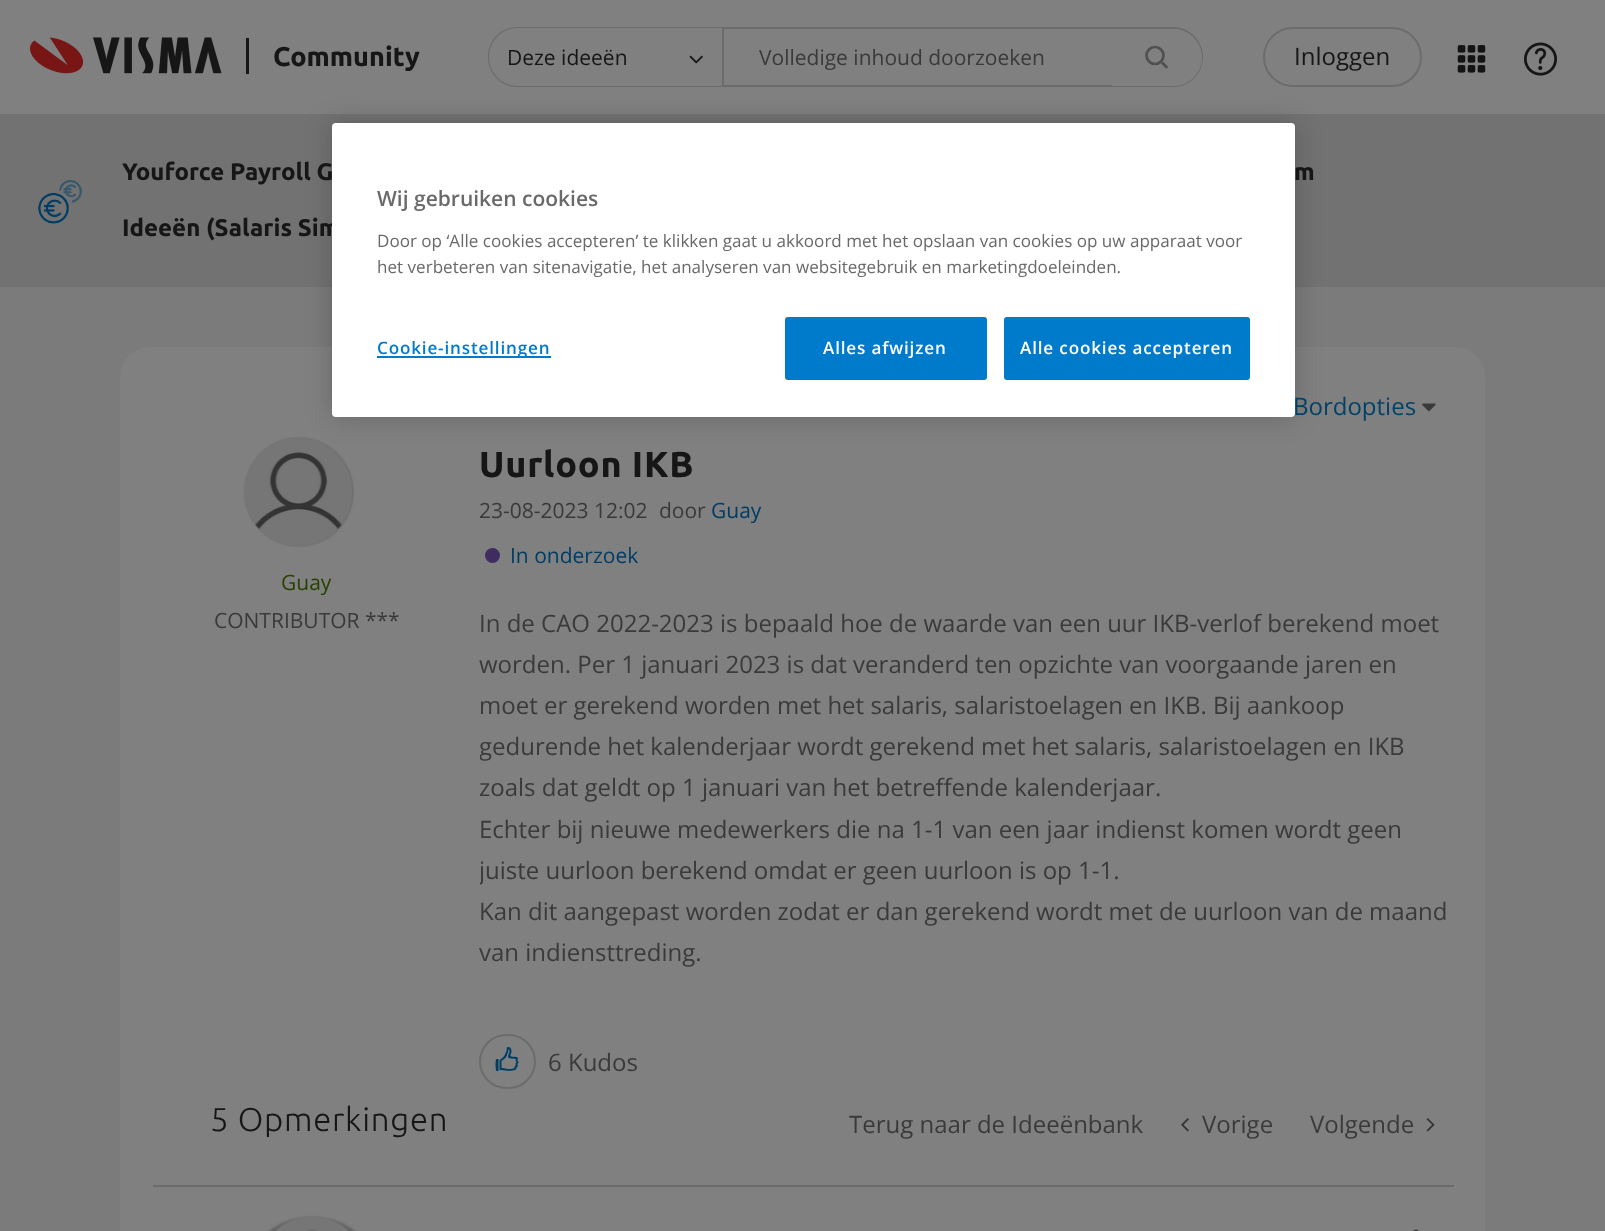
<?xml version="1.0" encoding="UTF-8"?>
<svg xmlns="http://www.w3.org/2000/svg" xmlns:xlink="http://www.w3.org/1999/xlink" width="1605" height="1231">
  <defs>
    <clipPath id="clip1"><rect x="480" y="603" width="969" height="371" /></clipPath>
  </defs>
  <rect width="100%" height="100%" fill="#7b7b7b" />
  <rect width="1605" height="114" fill="#808080" />
  <image x="30" y="37" width="192" height="37" xlink:href="image1.png" />
  <rect x="246" y="38" width="3" height="36" fill="#161616" />
  <image x="689" y="55" width="14" height="9" xlink:href="image2.png" />
  <path d="M 518 27 h 204 v 60 h -204 c -17 0 -30 -13 -30 -30 c 0 -17 13 -30 30 -30 z m 0 1 h 204 v 58 h -204 c -16 0 -29 -13 -29 -29 c 0 -16 13 -29 29 -29 z" fill="#6c6c6c" fill-rule="evenodd" />
  <path d="M 723 28 h 450 c 16 0 29 13 29 29 c 0 16 -13 29 -29 29 h -450 z" fill="none" stroke="#6c6c6c" stroke-width="2" />
  <path d="M 1112 29 h 61.5 c 15.5 0 28.5 13 28.5 28.5 c 0 15.5 -13 28.5 -28.5 28.5 h -61.5 z" fill="#808080" />
  <path d="M 1166.5 67 l -4 -4" fill="none" stroke="#505050" stroke-width="2.7" stroke-linecap="round" />
  <circle cx="1155" cy="55.5" r="8.5" fill="none" stroke="#505050" stroke-width="2.7" />
  <rect x="1264" y="28" width="157" height="58" rx="29" fill="none" stroke="#6c6c6c" stroke-width="2" />
  <image x="1457" y="45" width="29" height="28" xlink:href="image3.png" />
  <image x="1524" y="42" width="33" height="34" xlink:href="image4.png" />
  <rect y="114" width="1605" height="173" fill="#727272" />
  <image x="38" y="180" width="44" height="44" xlink:href="image5.png" />
  <rect x="120" y="347" width="1365" height="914" rx="30" fill="#808080" />
  <image x="1422" y="403" width="14" height="9" xlink:href="image6.png" />
  <rect x="245" y="438" width="108" height="108" rx="54" fill="#626262" filter="blur(1px)" />
  <image x="244" y="438" width="108" height="108" xlink:href="image7.png" />
  <circle cx="492.5" cy="555.5" r="7.5" fill="#3f2c61" />
  <rect x="480" y="1035" width="55" height="53" rx="26.5" fill="none" stroke="#6c6c6c" stroke-width="2" />
  <image x="495" y="1047" width="24" height="24" xlink:href="image8.png" />
  <image x="1181" y="1118" width="8" height="14" xlink:href="image9.png" />
  <image x="1426" y="1118" width="9" height="14" xlink:href="image10.png" />
  <rect x="153" y="1185" width="1301" height="2" fill="#6c6c6c" />
  <rect x="258" y="1217" width="108" height="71" rx="54" fill="#626262" filter="blur(1px)" />
  <image x="276" y="1217" width="72" height="14" xlink:href="image11.png" />
  <circle cx="1416" cy="1232.2" r="2.6" fill="#3a3a3a" />
  <rect x="332" y="123" width="963" height="294" rx="4" fill="#000000" fill-opacity="0.2" filter="blur(13.5px)" />
  <text x="273" y="66" style="font-family: Ubuntu; font-size: 27px; font-weight: bold; fill: #161616">Community</text>
  <text x="507" y="65" style="font-family: Open Sans; font-size: 21px; fill: #161616">Deze ideeën</text>
  <text x="759" y="65" style="font-family: Open Sans; font-size: 21px; fill: #3a3a3a">Volledige inhoud doorzoeken</text>
  <text x="1294" y="65" style="font-family: Open Sans; font-size: 24px; fill: #161616">Inloggen</text>
  <text x="122" y="180" style="font-family: Ubuntu; font-size: 24px; font-weight: bold; fill: #161616">Youforce Payroll G</text>
  <text x="1294" y="180" style="font-family: Ubuntu; font-size: 24px; font-weight: bold; fill: #161616">m</text>
  <text x="122" y="236" style="font-family: Ubuntu; font-size: 24px; font-weight: bold; fill: #161616">Ideeën (Salaris Sim</text>
  <text x="1293" y="415" style="font-family: Open Sans; font-size: 24px; fill: #014368">Bordopties</text>
  <text x="281" y="590" style="font-family: Open Sans; font-size: 21px; fill: #274200">Guay</text>
  <text x="214" y="628" style="font-family: Open Sans; font-size: 21px; fill: #3a3a3a">CONTRIBUTOR ***</text>
  <text x="479" y="477" style="font-family: Ubuntu; font-size: 36px; font-weight: bold; letter-spacing: 0.75px; fill: #161616">Uurloon IKB</text>
  <text x="479" y="518" style="font-family: Open Sans; font-size: 21px; fill: #3a3a3a">23-08-2023 12:02</text>
  <text x="659" y="518" style="font-family: Open Sans; font-size: 21px; fill: #3a3a3a">door</text>
  <text x="711" y="518" style="font-family: Open Sans; font-size: 21px; fill: #003d65">Guay</text>
  <text x="510" y="563" style="font-family: Open Sans; font-size: 21px; fill: #003d65">In onderzoek</text>
  <text x="479" y="632" style="font-family: Open Sans; font-size: 24px; fill: #3a3a3a">In de CAO 2022-2023 is bepaald hoe de waarde van een uur IKB-verlof berekend moet</text>
  <text x="479" y="673" style="font-family: Open Sans; font-size: 24px; fill: #3a3a3a">worden. Per 1 januari 2023 is dat veranderd ten opzichte van voorgaande jaren en</text>
  <text x="479" y="714" style="font-family: Open Sans; font-size: 24px; fill: #3a3a3a">moet er gerekend worden met het salaris, salaristoelagen en IKB. Bij aankoop</text>
  <g clip-path="url(#clip1)">
    <text x="479" y="755" style="font-family: Open Sans; font-size: 24px; fill: #3a3a3a">gedurende het kalenderjaar wordt gerekend met het salaris, salaristoelagen en IKB</text>
  </g>
  <text x="479" y="796" style="font-family: Open Sans; font-size: 24px; fill: #3a3a3a">zoals dat geldt op 1 januari van het betreffende kalenderjaar.</text>
  <text x="479" y="838" style="font-family: Open Sans; font-size: 24px; fill: #3a3a3a">Echter bij nieuwe medewerkers die na 1-1 van een jaar indienst komen wordt geen</text>
  <g clip-path="url(#clip1)">
    <text x="479" y="879" style="font-family: Open Sans; font-size: 24px; fill: #3a3a3a">juiste uurloon berekend omdat er geen uurloon is op 1-1.</text>
  </g>
  <text x="479" y="920" style="font-family: Open Sans; font-size: 24px; fill: #3a3a3a">Kan dit aangepast worden zodat er dan gerekend wordt met de uurloon van de maand</text>
  <text x="479" y="961" style="font-family: Open Sans; font-size: 24px; fill: #3a3a3a">van indiensttreding.</text>
  <text x="548" y="1071" style="font-family: Open Sans; font-size: 24px; fill: #3a3a3a">6 Kudos</text>
  <text x="210" y="1131" style="font-family: Ubuntu; font-size: 33px; font-weight: 300; letter-spacing: 0.75px; fill: #161616">5 Opmerkingen</text>
  <text x="849" y="1133" style="font-family: Open Sans; font-size: 24px; fill: #3a3a3a">Terug naar de Ideeënbank</text>
  <text x="1202" y="1133" style="font-family: Open Sans; font-size: 24px; fill: #3a3a3a">Vorige</text>
  <text x="1310" y="1133" style="font-family: Open Sans; font-size: 24px; fill: #3a3a3a">Volgende</text>
  <rect x="332" y="123" width="963" height="294" rx="4" fill="#ffffff" />
  <text x="377" y="206" style="font-family: Open Sans; font-size: 21px; font-weight: 600; fill: #696969">Wij gebruiken cookies</text>
  <text x="377" y="247" style="font-family: Open Sans; font-size: 17.07px; fill: #696969">Door op ‘Alle cookies accepteren’ te klikken gaat u akkoord met het opslaan van cookies op uw apparaat voor</text>
  <text x="377" y="273" style="font-family: Open Sans; font-size: 17.07px; fill: #696969">het verbeteren van sitenavigatie, het analyseren van websitegebruik en marketingdoeleinden.</text>
  <rect x="377" y="356" width="174" height="2" fill="#007aca" />
  <text x="377" y="354" style="font-family: Open Sans; font-size: 17.07px; font-weight: 600; letter-spacing: 0.85px; fill: #007aca">Cookie-instellingen</text>
  <rect x="786" y="318" width="200" height="61" rx="2" fill="#007aca" stroke="#007aca" stroke-width="2" />
  <text x="823" y="354" style="font-family: Open Sans; font-size: 17.07px; font-weight: 600; letter-spacing: 0.85px; fill: #ffffff">Alles afwijzen</text>
  <rect x="1005" y="318" width="244" height="61" rx="2" fill="#007aca" stroke="#007aca" stroke-width="2" />
  <text x="1020" y="354" style="font-family: Open Sans; font-size: 17.07px; font-weight: 600; letter-spacing: 0.85px; fill: #ffffff">Alle cookies accepteren</text>
</svg>
